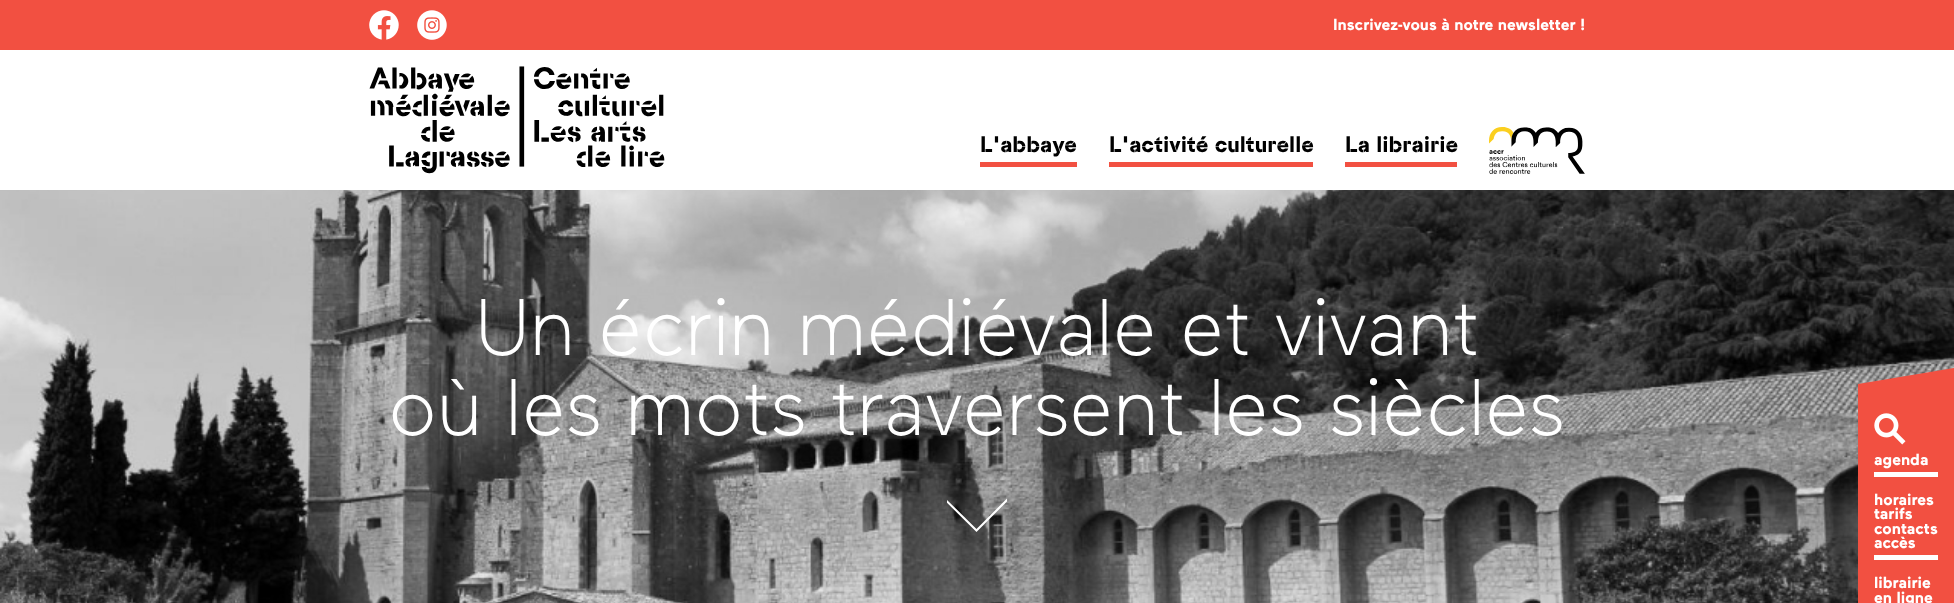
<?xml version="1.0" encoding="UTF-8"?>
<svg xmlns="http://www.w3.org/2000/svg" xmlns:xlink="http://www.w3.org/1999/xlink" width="1954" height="603">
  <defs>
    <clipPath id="clip1"><rect x="947" y="493" width="60" height="40" /></clipPath>
  </defs>
  <rect width="100%" height="100%" fill="#ffffff" />
  <rect width="1954" height="50" fill="#f25041" />
  <image x="369" y="10" width="30" height="30" xlink:href="image1.png" />
  <image x="417" y="10" width="30" height="30" xlink:href="image2.png" />
  <image x="369" y="66" width="296" height="108" xlink:href="image3.png" />
  <rect x="980" y="162" width="97" height="5" fill="#f25041" />
  <rect x="1109" y="162" width="204" height="5" fill="#f25041" />
  <rect x="1345" y="162" width="112" height="5" fill="#f25041" />
  <image x="1489" y="127" width="96" height="47" xlink:href="image4.png" />
  <image x="0" y="190" width="1954" height="413" xlink:href="image5.png" />
  <g clip-path="url(#clip1)">
    <path d="M 936.5 491 l 40 39.5 l 39.5 -39.5" fill="none" stroke="#ffffff" stroke-width="2.1" stroke-linecap="square" />
  </g>
  <rect x="1858" y="384" width="96" height="219" fill="#f25041" />
  <path d="M 1954 384 h -96 l 96 -16 z" fill="#f25041" />
  <image x="1874" y="413" width="32" height="32" xlink:href="image6.png" />
  <rect x="1874" y="472" width="64" height="5" fill="#ffffff" />
  <rect x="1874" y="555" width="64" height="5" fill="#ffffff" />
  <text x="1333" y="30" style="font-family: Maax; font-size: 16px; font-weight: bold; fill: #ffffff">Inscrivez-vous à notre newsletter !</text>
  <text x="980" y="152" style="font-family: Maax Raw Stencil; font-size: 22.5px; font-weight: bold; fill: #000000">L'abbaye</text>
  <text x="1109" y="152" style="font-family: Maax Raw Stencil; font-size: 22.5px; font-weight: bold; fill: #000000">L'activité culturelle</text>
  <text x="1345" y="152" style="font-family: Maax Raw Stencil; font-size: 22.5px; font-weight: bold; fill: #000000">La librairie</text>
  <text x="475" y="355" style="font-family: Maax; font-size: 80px; font-weight: 300; fill: #ffffff">Un écrin médiévale et vivant</text>
  <text x="388" y="435" style="font-family: Maax; font-size: 80px; font-weight: 300; fill: #ffffff">où les mots traversent les siècles</text>
  <text x="1874" y="465" style="font-family: Maax; font-size: 16px; font-weight: bold; fill: #ffffff">agenda</text>
  <text x="1874" y="505" style="font-family: Maax; font-size: 16px; font-weight: bold; fill: #ffffff">horaires</text>
  <text x="1874" y="519" style="font-family: Maax; font-size: 16px; font-weight: bold; fill: #ffffff">tarifs</text>
  <text x="1874" y="534" style="font-family: Maax; font-size: 16px; font-weight: bold; fill: #ffffff">contacts</text>
  <text x="1874" y="548" style="font-family: Maax; font-size: 16px; font-weight: bold; fill: #ffffff">accès</text>
  <text x="1874" y="588" style="font-family: Maax; font-size: 16px; font-weight: bold; fill: #ffffff">librairie</text>
  <text x="1874" y="603" style="font-family: Maax; font-size: 16px; font-weight: bold; fill: #ffffff">en ligne</text>
</svg>
